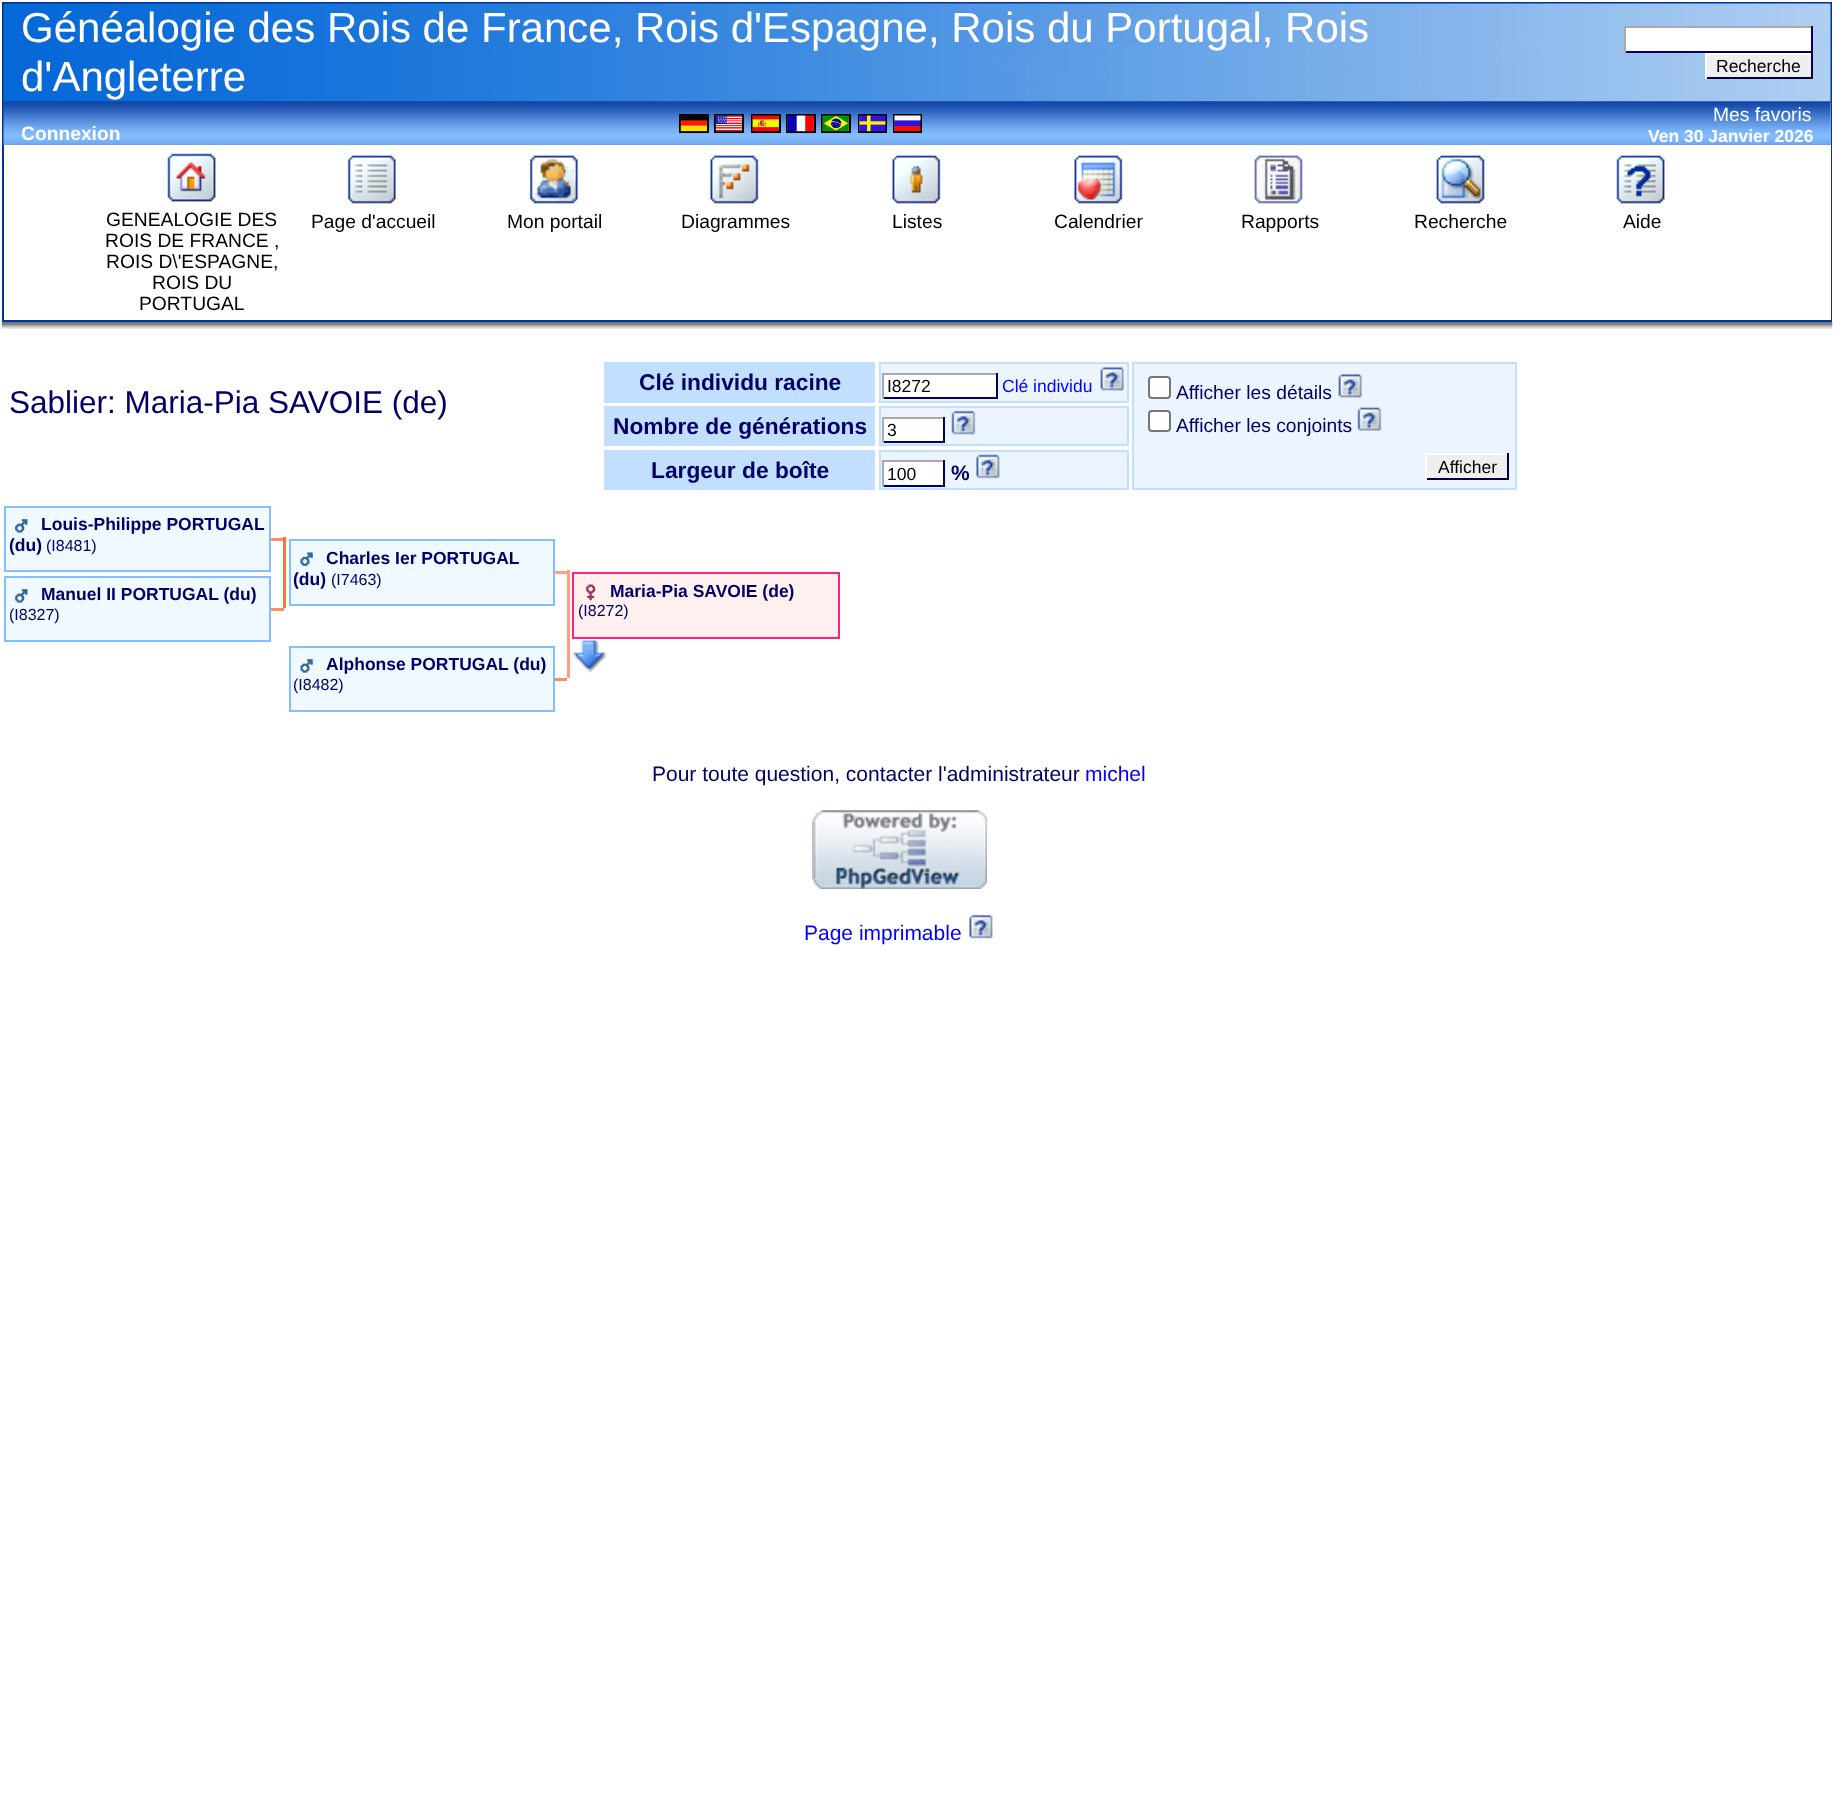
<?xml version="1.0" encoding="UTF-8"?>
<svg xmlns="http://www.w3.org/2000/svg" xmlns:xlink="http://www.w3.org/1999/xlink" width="1833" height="1805">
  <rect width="100%" height="100%" fill="#ffffff" />
  <rect x="271" y="538" width="13" height="3" fill="#ff8c66" />
  <rect x="2" y="2" width="1830" height="320" fill="#003399" />
  <image x="3" y="3" width="1828" height="99" xlink:href="image1.png" />
  <rect x="1626" y="28" width="185" height="23" fill="#ffffff" />
  <rect x="1624" y="26" width="189" height="2" fill="#aaaaaa" />
  <rect x="1811" y="26" width="2" height="27" fill="#000066" />
  <rect x="1624" y="51" width="189" height="2" fill="#000066" />
  <rect x="1624" y="26" width="2" height="27" fill="#aaaaaa" />
  <rect x="1707" y="55" width="104" height="22" fill="#efefef" />
  <rect x="1705" y="53" width="108" height="2" fill="#ffffff" />
  <rect x="1811" y="53" width="2" height="26" fill="#000044" />
  <rect x="1705" y="77" width="108" height="2" fill="#000044" />
  <rect x="1705" y="53" width="2" height="26" fill="#ffffff" />
  <rect x="1830" y="102" width="1" height="43" fill="#84beff" />
  <image x="3" y="101" width="1828" height="45" xlink:href="image2.png" />
  <rect x="680" y="115" width="28" height="17" fill="none" stroke="#000000" stroke-width="2" />
  <rect x="715" y="115" width="28" height="17" fill="none" stroke="#000000" stroke-width="2" />
  <rect x="752" y="115" width="28" height="17" fill="none" stroke="#000000" stroke-width="2" />
  <rect x="787" y="115" width="28" height="17" fill="none" stroke="#000000" stroke-width="2" />
  <rect x="822" y="115" width="28" height="17" fill="none" stroke="#000000" stroke-width="2" />
  <rect x="859" y="115" width="27" height="17" fill="none" stroke="#000000" stroke-width="2" />
  <rect x="894" y="115" width="27" height="17" fill="none" stroke="#000000" stroke-width="2" />
  <image x="680" y="115" width="27" height="17" xlink:href="image3.png" />
  <image x="715" y="115" width="27" height="17" xlink:href="image4.png" />
  <image x="752" y="115" width="27" height="17" xlink:href="image5.png" />
  <image x="787" y="115" width="27" height="17" xlink:href="image6.png" />
  <image x="822" y="115" width="27" height="17" xlink:href="image7.png" />
  <image x="859" y="115" width="27" height="17" xlink:href="image8.png" />
  <image x="894" y="115" width="27" height="17" xlink:href="image9.png" />
  <rect x="4" y="145" width="1827" height="175" fill="#ffffff" />
  <image x="167" y="153" width="49" height="49" xlink:href="image10.png" />
  <image x="347" y="155" width="49" height="49" xlink:href="image11.png" />
  <image x="529" y="155" width="49" height="49" xlink:href="image12.png" />
  <image x="710" y="155" width="49" height="49" xlink:href="image13.png" />
  <image x="892" y="155" width="49" height="49" xlink:href="image14.png" />
  <image x="1074" y="155" width="49" height="49" xlink:href="image15.png" />
  <image x="1254" y="155" width="49" height="49" xlink:href="image16.png" />
  <image x="1436" y="155" width="49" height="49" xlink:href="image17.png" />
  <image x="1616" y="155" width="49" height="49" xlink:href="image18.png" />
  <image x="1" y="322" width="1832" height="7" xlink:href="image19.png" />
  <rect x="604" y="362" width="271" height="41" fill="#c3dfff" />
  <rect x="880" y="363" width="248" height="39" fill="#ecf5ff" stroke="#c3dfff" stroke-width="2" />
  <rect x="884" y="375" width="112" height="22" fill="#ffffff" />
  <rect x="882" y="373" width="116" height="2" fill="#aaaaaa" />
  <rect x="996" y="373" width="2" height="26" fill="#000066" />
  <rect x="882" y="397" width="116" height="2" fill="#000066" />
  <rect x="882" y="373" width="2" height="26" fill="#aaaaaa" />
  <image x="1100" y="367" width="24" height="24" xlink:href="image20.png" />
  <rect x="1133" y="363" width="383" height="126" fill="#ecf5ff" stroke="#c3dfff" stroke-width="2" />
  <rect x="1149" y="377" width="21" height="21" rx="3" fill="#ffffff" stroke="#767676" stroke-width="2" />
  <image x="1338" y="374" width="24" height="24" xlink:href="image20.png" />
  <rect x="1149" y="411" width="21" height="20" rx="3" fill="#ffffff" stroke="#767676" stroke-width="2" />
  <image x="1357" y="407" width="25" height="24" xlink:href="image21.png" />
  <rect x="1427" y="455" width="80" height="23" fill="#efefef" />
  <rect x="1425" y="453" width="84" height="2" fill="#ffffff" />
  <rect x="1507" y="453" width="2" height="27" fill="#000044" />
  <rect x="1425" y="478" width="84" height="2" fill="#000044" />
  <rect x="1425" y="453" width="2" height="27" fill="#ffffff" />
  <rect x="604" y="406" width="271" height="40" fill="#c3dfff" />
  <rect x="880" y="407" width="248" height="38" fill="#ecf5ff" stroke="#c3dfff" stroke-width="2" />
  <rect x="884" y="419" width="59" height="22" fill="#ffffff" />
  <rect x="882" y="417" width="63" height="2" fill="#aaaaaa" />
  <rect x="943" y="417" width="2" height="26" fill="#000066" />
  <rect x="882" y="441" width="63" height="2" fill="#000066" />
  <rect x="882" y="417" width="2" height="26" fill="#aaaaaa" />
  <image x="951" y="410" width="25" height="25" xlink:href="image22.png" />
  <rect x="604" y="450" width="271" height="40" fill="#c3dfff" />
  <rect x="880" y="451" width="248" height="38" fill="#ecf5ff" stroke="#c3dfff" stroke-width="2" />
  <rect x="884" y="462" width="59" height="23" fill="#ffffff" />
  <rect x="882" y="460" width="63" height="2" fill="#aaaaaa" />
  <rect x="943" y="460" width="2" height="27" fill="#000066" />
  <rect x="882" y="485" width="63" height="2" fill="#000066" />
  <rect x="882" y="460" width="2" height="27" fill="#aaaaaa" />
  <image x="976" y="454" width="24" height="25" xlink:href="image23.png" />
  <rect x="5" y="507" width="265" height="64" fill="#f0f9ff" stroke="#84beff" stroke-width="2" />
  <image x="15" y="519" width="13" height="14" xlink:href="image24.png" />
  <rect x="283" y="537" width="3" height="71" fill="#ff7142" />
  <rect x="283" y="538" width="1" height="3" fill="#ff6837" />
  <rect x="5" y="577" width="265" height="64" fill="#f0f9ff" stroke="#84beff" stroke-width="2" />
  <image x="15" y="589" width="13" height="14" xlink:href="image24.png" />
  <rect x="271" y="608" width="13" height="3" fill="#ff8c66" />
  <rect x="554" y="571" width="13" height="3" fill="#ffa080" />
  <rect x="290" y="540" width="264" height="65" fill="#f0f9ff" stroke="#84beff" stroke-width="2" />
  <image x="300" y="552" width="13" height="14" xlink:href="image25.png" />
  <rect x="567" y="570" width="3" height="108" fill="#ff9d7c" />
  <rect x="554" y="678" width="13" height="3" fill="#ff8c66" />
  <rect x="290" y="647" width="264" height="64" fill="#f0f9ff" stroke="#84beff" stroke-width="2" />
  <image x="300" y="659" width="13" height="14" xlink:href="image26.png" />
  <rect x="573" y="573" width="266" height="65" fill="#fff0f0" stroke="#ff2080" stroke-width="2" />
  <image x="586" y="584" width="10" height="17" xlink:href="image27.png" />
  <image x="572" y="640" width="36" height="33" xlink:href="image28.png" />
  <image x="812" y="810" width="175" height="79" xlink:href="image29.png" />
  <image x="969" y="914" width="24" height="25" xlink:href="image30.png" />
  <text x="21" y="42" style="font-family: Liberation Sans; font-size: 42px; fill: #ffffff">Généalogie des Rois de France, Rois d'Espagne, Rois du Portugal, Rois</text>
  <text x="21" y="91" style="font-family: Liberation Sans; font-size: 42px; fill: #ffffff">d'Angleterre</text>
  <text x="1716" y="72" style="font-family: Liberation Sans; font-size: 17.5px; fill: #000000">Recherche</text>
  <text x="21" y="140" style="font-family: Liberation Sans; font-size: 19.25px; font-weight: bold; fill: #ffffff">Connexion</text>
  <text x="1713" y="121" style="font-family: Liberation Sans; font-size: 19.25px; fill: #ffffff">Mes favoris</text>
  <text x="1648" y="142" style="font-family: Liberation Sans; font-size: 17.5px; font-weight: bold; fill: #ffffff">Ven 30 Janvier 2026</text>
  <text x="106" y="226" style="font-family: Liberation Sans; font-size: 19.25px; fill: #000000">GENEALOGIE DES</text>
  <text x="105" y="247" style="font-family: Liberation Sans; font-size: 19.25px; fill: #000000">ROIS DE FRANCE ,</text>
  <text x="106" y="268" style="font-family: Liberation Sans; font-size: 19.25px; fill: #000000">ROIS D\'ESPAGNE,</text>
  <text x="152" y="289" style="font-family: Liberation Sans; font-size: 19.25px; fill: #000000">ROIS DU</text>
  <text x="139" y="310" style="font-family: Liberation Sans; font-size: 19.25px; fill: #000000">PORTUGAL</text>
  <text x="311" y="228" style="font-family: Liberation Sans; font-size: 19.25px; fill: #000000">Page d'accueil</text>
  <text x="507" y="228" style="font-family: Liberation Sans; font-size: 19.25px; fill: #000000">Mon portail</text>
  <text x="681" y="228" style="font-family: Liberation Sans; font-size: 19.25px; fill: #000000">Diagrammes</text>
  <text x="892" y="228" style="font-family: Liberation Sans; font-size: 19.25px; fill: #000000">Listes</text>
  <text x="1054" y="228" style="font-family: Liberation Sans; font-size: 19.25px; fill: #000000">Calendrier</text>
  <text x="1241" y="228" style="font-family: Liberation Sans; font-size: 19.25px; fill: #000000">Rapports</text>
  <text x="1414" y="228" style="font-family: Liberation Sans; font-size: 19.25px; fill: #000000">Recherche</text>
  <text x="1623" y="228" style="font-family: Liberation Sans; font-size: 19.25px; fill: #000000">Aide</text>
  <text x="9" y="413" style="font-family: Liberation Sans; font-size: 31.5px; fill: #000066">Sablier: Maria-Pia SAVOIE (de)</text>
  <text x="639" y="390" style="font-family: Liberation Sans; font-size: 22.75px; font-weight: bold; fill: #000066">Clé individu racine</text>
  <text x="887" y="392" style="font-family: Liberation Sans; font-size: 17.5px; fill: #000000">I8272</text>
  <text x="1002" y="392" style="font-family: Liberation Sans; font-size: 17.5px; fill: #0000ff">Clé individu</text>
  <text x="1176" y="399" style="font-family: Liberation Sans; font-size: 19.25px; fill: #000066">Afficher les détails</text>
  <text x="1176" y="432" style="font-family: Liberation Sans; font-size: 19.25px; fill: #000066">Afficher les conjoints</text>
  <text x="1438" y="473" style="font-family: Liberation Sans; font-size: 17.5px; fill: #000000">Afficher</text>
  <text x="613" y="434" style="font-family: Liberation Sans; font-size: 22.75px; font-weight: bold; fill: #000066">Nombre de générations</text>
  <text x="887" y="436" style="font-family: Liberation Sans; font-size: 17.5px; fill: #000000">3</text>
  <text x="651" y="478" style="font-family: Liberation Sans; font-size: 22.75px; font-weight: bold; fill: #000066">Largeur de boîte</text>
  <text x="887" y="480" style="font-family: Liberation Sans; font-size: 17.5px; fill: #000000">100</text>
  <text x="951" y="480" style="font-family: Liberation Sans; font-size: 21px; font-weight: bold; fill: #000066">%</text>
  <text x="41" y="530" style="font-family: Liberation Sans; font-size: 17.5px; font-weight: bold; fill: #000066">Louis-Philippe PORTUGAL</text>
  <text x="9" y="551" style="font-family: Liberation Sans; font-size: 17.5px; font-weight: bold; fill: #000066">(du)</text>
  <text x="46" y="551" style="font-family: Liberation Sans; font-size: 16px; fill: #000066">(I8481)</text>
  <text x="41" y="600" style="font-family: Liberation Sans; font-size: 17.5px; font-weight: bold; fill: #000066">Manuel II PORTUGAL (du)</text>
  <text x="9" y="620" style="font-family: Liberation Sans; font-size: 16px; fill: #000066">(I8327)</text>
  <text x="326" y="564" style="font-family: Liberation Sans; font-size: 17.5px; font-weight: bold; fill: #000066">Charles Ier PORTUGAL</text>
  <text x="293" y="585" style="font-family: Liberation Sans; font-size: 17.5px; font-weight: bold; fill: #000066">(du)</text>
  <text x="331" y="585" style="font-family: Liberation Sans; font-size: 16px; fill: #000066">(I7463)</text>
  <text x="326" y="670" style="font-family: Liberation Sans; font-size: 17.5px; font-weight: bold; fill: #000066">Alphonse PORTUGAL (du)</text>
  <text x="293" y="690" style="font-family: Liberation Sans; font-size: 16px; fill: #000066">(I8482)</text>
  <text x="610" y="597" style="font-family: Liberation Sans; font-size: 17.5px; font-weight: bold; fill: #000066">Maria-Pia SAVOIE (de)</text>
  <text x="578" y="616" style="font-family: Liberation Sans; font-size: 16px; fill: #000066">(I8272)</text>
  <text x="652" y="781" style="font-family: Liberation Sans; font-size: 21px; fill: #000066">Pour toute question, contacter l'administrateur</text>
  <text x="1085" y="781" style="font-family: Liberation Sans; font-size: 21px; fill: #0000ff">michel</text>
  <text x="804" y="940" style="font-family: Liberation Sans; font-size: 21px; fill: #0000ff">Page imprimable</text>
</svg>
